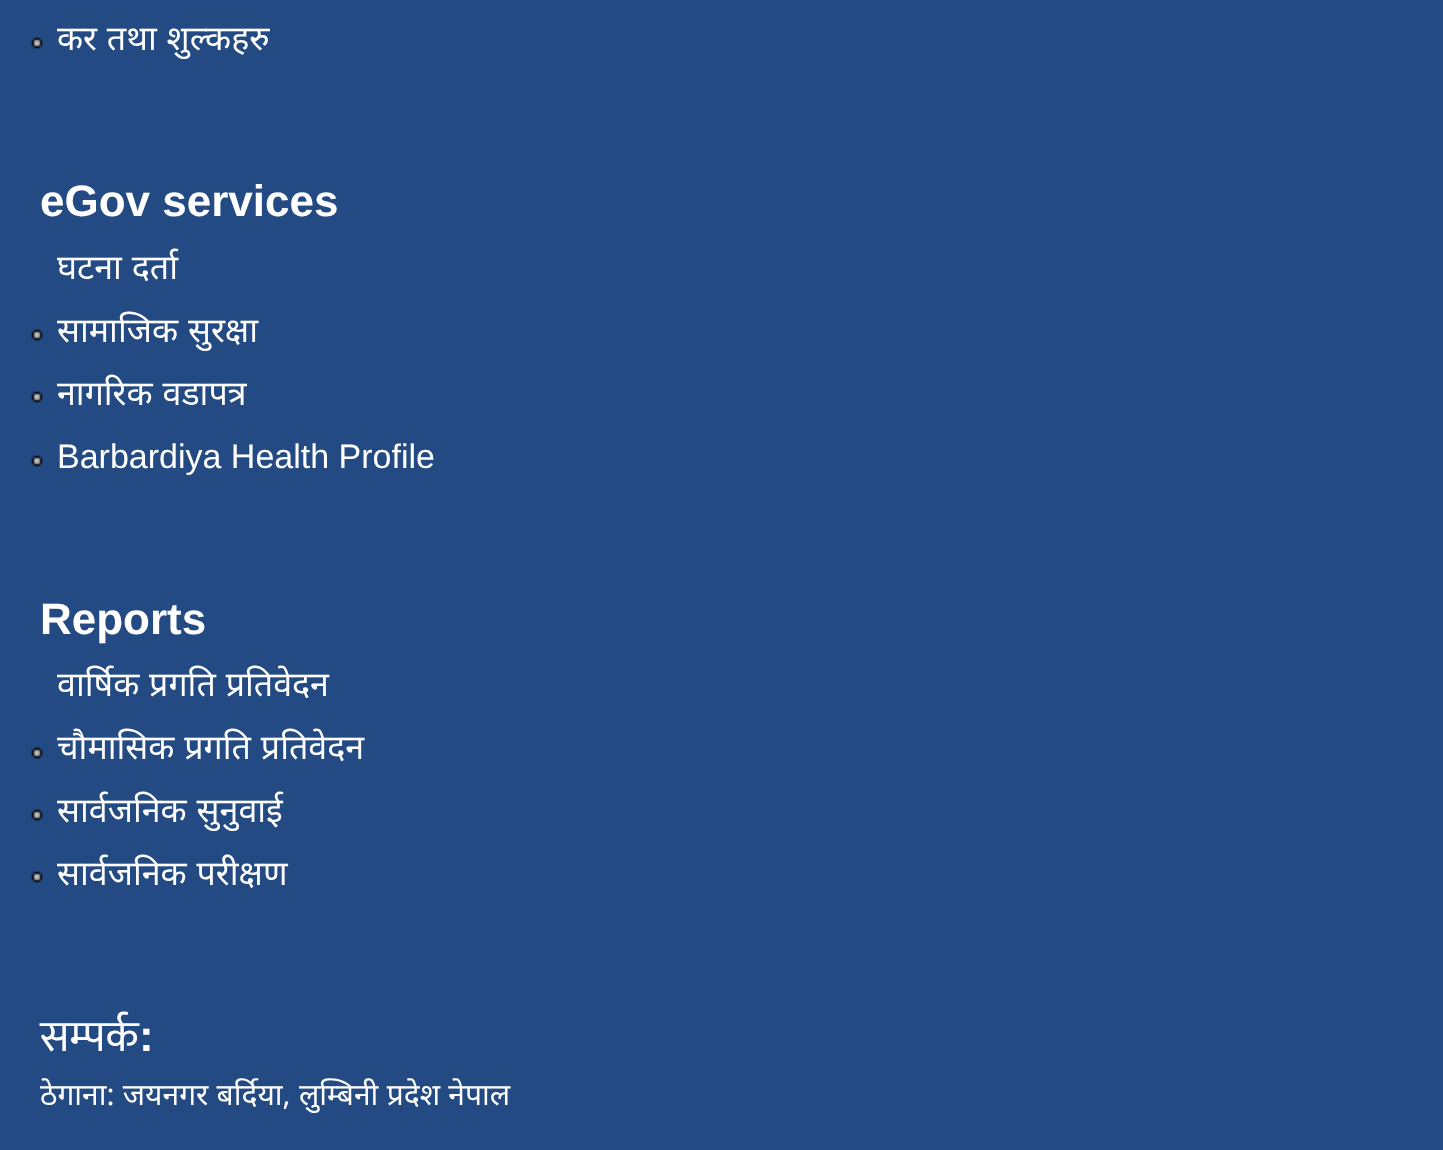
<?xml version="1.0" encoding="UTF-8"?>
<svg xmlns="http://www.w3.org/2000/svg" xmlns:xlink="http://www.w3.org/1999/xlink" width="1443" height="1150">
  <rect width="100%" height="100%" fill="#234a83" />
  <image x="31" y="37" width="12" height="12" xlink:href="image1.png" />
  <image x="31" y="329" width="12" height="12" xlink:href="image1.png" />
  <image x="31" y="391" width="12" height="12" xlink:href="image1.png" />
  <image x="31" y="455" width="12" height="12" xlink:href="image1.png" />
  <image x="31" y="747" width="12" height="12" xlink:href="image1.png" />
  <image x="31" y="809" width="12" height="12" xlink:href="image1.png" />
  <image x="31" y="871" width="12" height="12" xlink:href="image1.png" />
  <text x="57" y="50" word-spacing="1" style="font-family: Noto Sans; font-size: 34px; fill: #ffffff">कर तथा शुल्कहरु</text>
  <text x="40" y="216" style="font-family: Liberation Sans; font-size: 44px; font-weight: bold; fill: #ffffff">eGov services</text>
  <text x="57" y="279" word-spacing="1" style="font-family: Noto Sans; font-size: 34px; fill: #ffffff">घटना दर्ता</text>
  <text x="57" y="342" word-spacing="1" style="font-family: Noto Sans; font-size: 34px; fill: #ffffff">सामाजिक सुरक्षा</text>
  <text x="57" y="405" word-spacing="1" style="font-family: Noto Sans; font-size: 34px; fill: #ffffff">नागरिक वडापत्र</text>
  <text x="57" y="468" style="font-family: Liberation Sans; font-size: 34px; fill: #ffffff">Barbardiya Health Profile</text>
  <text x="40" y="634" style="font-family: Liberation Sans; font-size: 44px; font-weight: bold; fill: #ffffff">Reports</text>
  <text x="57" y="696" word-spacing="1" style="font-family: Noto Sans; font-size: 34px; fill: #ffffff">वार्षिक प्रगति प्रतिवेदन</text>
  <text x="57" y="759" word-spacing="1" style="font-family: Noto Sans; font-size: 34px; fill: #ffffff">चौमासिक प्रगति प्रतिवेदन</text>
  <text x="57" y="822" word-spacing="1" style="font-family: Noto Sans; font-size: 34px; fill: #ffffff">सार्वजनिक सुनुवाई</text>
  <text x="57" y="885" word-spacing="1" style="font-family: Noto Sans; font-size: 34px; fill: #ffffff">सार्वजनिक परीक्षण</text>
  <text x="40" y="1051" style="font-family: Mukta; font-size: 44px; fill: #ffffff">सम्पर्क</text>
  <text x="139" y="1051" style="font-family: Liberation Sans; font-size: 44px; font-weight: bold; fill: #ffffff">:</text>
  <text x="40" y="1105" word-spacing="0.5" style="font-family: Noto Sans; font-size: 30px; fill: #ffffff">ठेगाना: जयनगर बर्दिया, लुम्बिनी प्रदेश नेपाल</text>
</svg>
